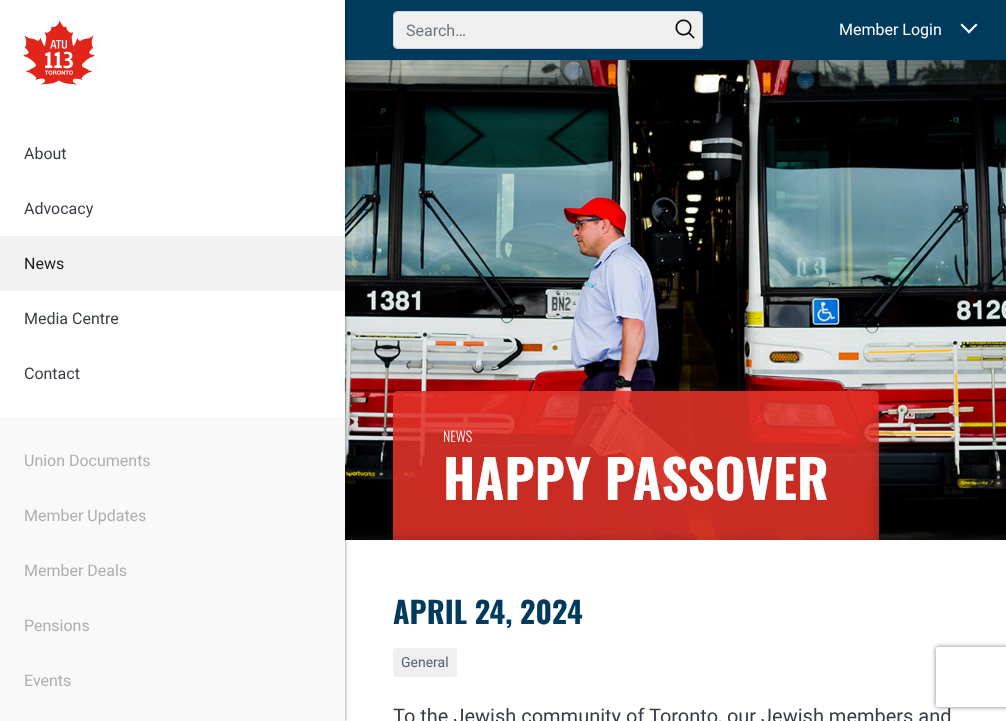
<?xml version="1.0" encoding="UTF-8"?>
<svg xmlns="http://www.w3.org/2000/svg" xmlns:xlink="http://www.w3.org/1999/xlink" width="1006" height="721">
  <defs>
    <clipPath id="clip1"><path d="M 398 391 h 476 c 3 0 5 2 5 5 v 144 h -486 v -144 c 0 -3 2 -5 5 -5 z" /></clipPath>
    <clipPath id="clip2"><path d="M 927 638 h 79 v 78 h -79 z m 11 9 h 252 c 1 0 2 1 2 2 v 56 c 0 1 -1 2 -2 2 h -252 c -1 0 -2 -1 -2 -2 v -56 c 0 -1 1 -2 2 -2 z" clip-rule="evenodd" /></clipPath>
  </defs>
  <rect width="100%" height="100%" fill="#ffffff" />
  <rect x="345" width="661" height="60" fill="#003a5d" />
  <image x="345" y="60" width="661" height="480" xlink:href="image3.png" />
  <rect x="1" width="345" height="721" fill="#000000" fill-opacity="0.3" filter="blur(1.5px)" />
  <g clip-path="url(#clip1)">
    <rect x="368" y="366" width="521" height="184" fill="#e1251b" fill-opacity="0.88" filter="blur(10px)" />
    <rect x="368" y="366" width="521" height="184" fill="#ffffff" fill-opacity="0.05" filter="blur(10px)" />
  </g>
  <rect width="345" height="417" fill="#ffffff" />
  <image x="23" y="20" width="72" height="65" xlink:href="image1.png" />
  <rect y="236" width="345" height="55" fill="#f2f2f2" />
  <rect y="417" width="345" height="304" fill="#f9f9f9" />
  <rect x="394" y="12" width="308" height="36" rx="3" fill="#efefef" />
  <image x="675" y="19" width="20" height="20" xlink:href="image2.png" />
  <rect x="393.5" y="11.5" width="309" height="37" rx="3.5" fill="none" stroke="#ced4da" />
  <path d="M 976 23.5 l 1.5 1.5 l -8.5 8.5 l -1.5 -1.5 z" fill="#ffffff" />
  <path d="M 962 23.5 l 8.5 8.5 l -1.5 1.5 l -8.5 -8.5 z" fill="#ffffff" />
  <rect x="393" y="648" width="64" height="29" rx="4" fill="#efefef" />
  <g clip-path="url(#clip2)">
    <rect x="936" y="647" width="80" height="60" rx="2" fill="#808080" filter="blur(2.5px)" />
  </g>
  <text x="24" y="159" style="font-family: Roboto; font-size: 16px; fill: #373d45">About</text>
  <text x="24" y="214" style="font-family: Roboto; font-size: 16px; fill: #373d45">Advocacy</text>
  <text x="24" y="269" style="font-family: Roboto; font-size: 16px; fill: #181818">News</text>
  <text x="24" y="324" style="font-family: Roboto; font-size: 16px; fill: #373d45">Media Centre</text>
  <text x="24" y="379" style="font-family: Roboto; font-size: 16px; fill: #373d45">Contact</text>
  <text x="24" y="466" style="font-family: Roboto; font-size: 16px; fill: #aeaeae">Union Documents</text>
  <text x="24" y="521" style="font-family: Roboto; font-size: 16px; fill: #aeaeae">Member Updates</text>
  <text x="24" y="576" style="font-family: Roboto; font-size: 16px; fill: #aeaeae">Member Deals</text>
  <text x="24" y="631" style="font-family: Roboto; font-size: 16px; fill: #aeaeae">Pensions</text>
  <text x="24" y="686" style="font-family: Roboto; font-size: 16px; fill: #aeaeae">Events</text>
  <text x="406" y="36" style="font-family: Roboto; font-size: 16px; fill: #6c757d">Search…</text>
  <text x="839" y="35" style="font-family: Roboto; font-size: 16px; fill: #ffffff">Member Login</text>
  <text x="443" y="442" style="font-family: Oswald; font-size: 14px; font-weight: 300; fill: #ffffff">NEWS</text>
  <text x="443" y="500" style="font-family: Oswald; font-size: 53px; font-weight: bold; fill: #ffffff">HAPPY PASSOVER</text>
  <text x="393" y="624" style="font-family: Oswald; font-size: 30px; font-weight: bold; fill: #003a5d">APRIL 24, 2024</text>
  <text x="401" y="667" style="font-family: Roboto; font-size: 14px; fill: #536177">General</text>
  <text x="393" y="723" style="font-family: Roboto; font-size: 20px; fill: #373d45">To the Jewish community of Toronto, our Jewish members and</text>
</svg>
